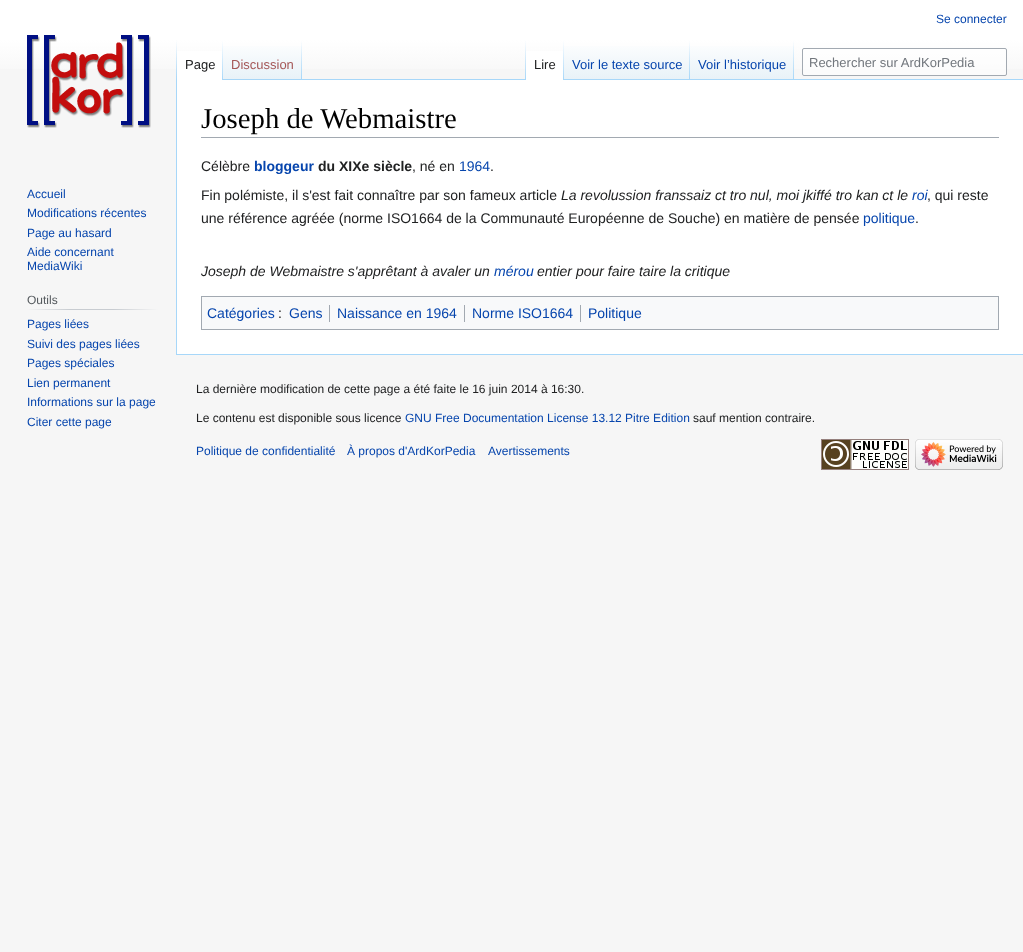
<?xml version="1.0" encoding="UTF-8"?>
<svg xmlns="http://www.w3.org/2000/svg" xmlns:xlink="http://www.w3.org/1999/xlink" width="1023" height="952">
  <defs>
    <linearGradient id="g1" gradientUnits="userSpaceOnUse" x1="512" y1="0" x2="512" y2="80"><stop offset="0.5" stop-color="#ffffff" /><stop offset="1" stop-color="#f6f6f6" /></linearGradient>
    <linearGradient id="g2" gradientUnits="userSpaceOnUse" x1="177" y1="40" x2="177" y2="80"><stop offset="0" stop-color="#a7d7f9" stop-opacity="0" /><stop offset="1" stop-color="#a7d7f9" /></linearGradient>
    <linearGradient id="g3" gradientUnits="userSpaceOnUse" x1="223" y1="40" x2="223" y2="80"><stop offset="0" stop-color="#ffffff" /><stop offset="1" stop-color="#a7d7f9" /></linearGradient>
    <linearGradient id="g4" gradientUnits="userSpaceOnUse" x1="263" y1="80" x2="263" y2="40"><stop offset="0" stop-color="#77c1f6" /><stop offset="0.03" stop-color="#e8f2f8" /><stop offset="1" stop-color="#ffffff" /></linearGradient>
    <linearGradient id="g5" gradientUnits="userSpaceOnUse" x1="302" y1="40" x2="302" y2="80"><stop offset="0" stop-color="#a7d7f9" stop-opacity="0" /><stop offset="1" stop-color="#a7d7f9" /></linearGradient>
    <linearGradient id="g6" gradientUnits="userSpaceOnUse" x1="526" y1="40" x2="526" y2="80"><stop offset="0" stop-color="#a7d7f9" stop-opacity="0" /><stop offset="1" stop-color="#a7d7f9" /></linearGradient>
    <linearGradient id="g7" gradientUnits="userSpaceOnUse" x1="564" y1="40" x2="564" y2="80"><stop offset="0" stop-color="#ffffff" /><stop offset="1" stop-color="#a7d7f9" /></linearGradient>
    <linearGradient id="g8" gradientUnits="userSpaceOnUse" x1="627" y1="80" x2="627" y2="40"><stop offset="0" stop-color="#77c1f6" /><stop offset="0.03" stop-color="#e8f2f8" /><stop offset="1" stop-color="#ffffff" /></linearGradient>
    <linearGradient id="g9" gradientUnits="userSpaceOnUse" x1="690" y1="40" x2="690" y2="80"><stop offset="0" stop-color="#a7d7f9" stop-opacity="0" /><stop offset="1" stop-color="#a7d7f9" /></linearGradient>
    <linearGradient id="g10" gradientUnits="userSpaceOnUse" x1="742" y1="80" x2="742" y2="40"><stop offset="0" stop-color="#77c1f6" /><stop offset="0.03" stop-color="#e8f2f8" /><stop offset="1" stop-color="#ffffff" /></linearGradient>
    <linearGradient id="g11" gradientUnits="userSpaceOnUse" x1="794" y1="40" x2="794" y2="80"><stop offset="0" stop-color="#a7d7f9" stop-opacity="0" /><stop offset="1" stop-color="#a7d7f9" /></linearGradient>
    <linearGradient id="g12" gradientUnits="userSpaceOnUse" x1="27" y1="310" x2="158" y2="310"><stop offset="0" stop-color="#f6f6f6" /><stop offset="0.33" stop-color="#c8ccd1" /><stop offset="0.66" stop-color="#c8ccd1" /><stop offset="1" stop-color="#f6f6f6" /></linearGradient>
  </defs>
  <rect width="100%" height="100%" fill="#f6f6f6" />
  <rect width="1023" height="69" fill="url(#g1)" />
  <rect x="176" y="354" width="847" height="1" fill="#a7d7f9" />
  <rect x="176" y="79" width="1" height="276" fill="#a7d7f9" />
  <rect x="176" y="40" width="1" height="40" fill="url(#g2)" />
  <rect x="177" y="51" width="45" height="29" fill="#ffffff" />
  <rect x="222" y="40" width="1" height="40" fill="url(#g3)" />
  <rect x="223" y="46" width="79" height="34" fill="url(#g4)" />
  <rect x="301" y="40" width="1" height="40" fill="url(#g5)" />
  <rect x="302" y="79" width="721" height="1" fill="#a7d7f9" />
  <rect x="525" y="40" width="1" height="40" fill="url(#g6)" />
  <rect x="526" y="51" width="37" height="29" fill="#ffffff" />
  <rect x="563" y="40" width="1" height="40" fill="url(#g7)" />
  <rect x="564" y="46" width="126" height="33" fill="url(#g8)" />
  <rect x="689" y="40" width="1" height="40" fill="url(#g9)" />
  <rect x="690" y="46" width="104" height="33" fill="url(#g10)" />
  <rect x="793" y="40" width="1" height="40" fill="url(#g11)" />
  <rect x="802.5" y="48.5" width="204" height="27" rx="1.5" fill="#ffffff" fill-opacity="0.5" stroke="#a2a9b1" />
  <image x="27" y="35" width="124" height="93" xlink:href="image1.png" />
  <rect x="27" y="309" width="131" height="1" fill="url(#g12)" />
  <rect x="177" y="80" width="846" height="274" fill="#ffffff" />
  <rect x="201" y="137" width="798" height="1" fill="#a2a9b1" />
  <rect x="201.5" y="296.5" width="797" height="33" fill="#f8f9fa" stroke="#a2a9b1" />
  <rect x="329" y="305" width="1" height="17" fill="#a2a9b1" />
  <rect x="464" y="305" width="1" height="17" fill="#a2a9b1" />
  <rect x="580" y="305" width="1" height="17" fill="#a2a9b1" />
  <image x="821" y="439" width="88" height="31" xlink:href="image2.png" />
  <image x="915" y="439" width="88" height="31" xlink:href="image3.png" />
  <text x="936" y="23" style="font-family: Liberation Sans; font-size: 12px; fill: #0645ad">Se connecter</text>
  <text x="185" y="69" style="font-family: Liberation Sans; font-size: 13px; fill: #202122">Page</text>
  <text x="231" y="69" style="font-family: Liberation Sans; font-size: 13px; fill: #a55858">Discussion</text>
  <text x="534" y="69" style="font-family: Liberation Sans; font-size: 13px; fill: #202122">Lire</text>
  <text x="572" y="69" style="font-family: Liberation Sans; font-size: 13px; fill: #0645ad">Voir le texte source</text>
  <text x="698" y="69" style="font-family: Liberation Sans; font-size: 13px; fill: #0645ad">Voir l’historique</text>
  <text x="809" y="67" style="font-family: Liberation Sans; font-size: 13px; fill: #72777d">Rechercher sur ArdKorPedia</text>
  <text x="27" y="198" style="font-family: Liberation Sans; font-size: 12px; fill: #0645ad">Accueil</text>
  <text x="27" y="217" style="font-family: Liberation Sans; font-size: 12px; fill: #0645ad">Modifications récentes</text>
  <text x="27" y="237" style="font-family: Liberation Sans; font-size: 12px; fill: #0645ad">Page au hasard</text>
  <text x="27" y="256" style="font-family: Liberation Sans; font-size: 12px; fill: #0645ad">Aide concernant</text>
  <text x="27" y="270" style="font-family: Liberation Sans; font-size: 12px; fill: #0645ad">MediaWiki</text>
  <text x="27" y="304" style="font-family: Liberation Sans; font-size: 12px; fill: #54595d">Outils</text>
  <text x="27" y="328" style="font-family: Liberation Sans; font-size: 12px; fill: #0645ad">Pages liées</text>
  <text x="27" y="348" style="font-family: Liberation Sans; font-size: 12px; fill: #0645ad">Suivi des pages liées</text>
  <text x="27" y="367" style="font-family: Liberation Sans; font-size: 12px; fill: #0645ad">Pages spéciales</text>
  <text x="27" y="387" style="font-family: Liberation Sans; font-size: 12px; fill: #0645ad">Lien permanent</text>
  <text x="27" y="406" style="font-family: Liberation Sans; font-size: 12px; fill: #0645ad">Informations sur la page</text>
  <text x="27" y="426" style="font-family: Liberation Sans; font-size: 12px; fill: #0645ad">Citer cette page</text>
  <text x="201" y="128" style="font-family: Liberation Serif; font-size: 28.75px; fill: #000000">Joseph de Webmaistre</text>
  <text x="201" y="171" style="font-family: Liberation Sans; font-size: 14px; fill: #202122">Célèbre</text>
  <text x="254" y="171" style="font-family: Liberation Sans; font-size: 14px; font-weight: bold; fill: #0645ad">bloggeur</text>
  <text x="318" y="171" style="font-family: Liberation Sans; font-size: 14px; font-weight: bold; fill: #202122">du XIXe siècle</text>
  <text x="412" y="171" style="font-family: Liberation Sans; font-size: 14px; fill: #202122">, né en</text>
  <text x="459" y="171" style="font-family: Liberation Sans; font-size: 14px; fill: #0645ad">1964</text>
  <text x="490" y="171" style="font-family: Liberation Sans; font-size: 14px; fill: #202122">.</text>
  <text x="201" y="200" style="font-family: Liberation Sans; font-size: 14px; fill: #202122">Fin polémiste, il s'est fait connaître par son fameux article</text>
  <text x="561" y="200" style="font-family: Liberation Sans; font-size: 14px; font-style: italic; fill: #202122">La revolussion franssaiz ct tro nul, moi jkiffé tro kan ct le</text>
  <text x="912" y="200" style="font-family: Liberation Sans; font-size: 14px; font-style: italic; fill: #0645ad">roi</text>
  <text x="927" y="200" style="font-family: Liberation Sans; font-size: 14px; fill: #202122">, qui reste</text>
  <text x="201" y="223" style="font-family: Liberation Sans; font-size: 14px; fill: #202122">une référence agréée (norme ISO1664 de la Communauté Européenne de Souche) en matière de pensée</text>
  <text x="863" y="223" style="font-family: Liberation Sans; font-size: 14px; fill: #0645ad">politique</text>
  <text x="915" y="223" style="font-family: Liberation Sans; font-size: 14px; fill: #202122">.</text>
  <text x="201" y="276" style="font-family: Liberation Sans; font-size: 14px; font-style: italic; fill: #202122">Joseph de Webmaistre s'apprêtant à avaler un</text>
  <text x="494" y="276" style="font-family: Liberation Sans; font-size: 14px; font-style: italic; fill: #0645ad">mérou</text>
  <text x="537" y="276" style="font-family: Liberation Sans; font-size: 14px; font-style: italic; fill: #202122">entier pour faire taire la critique</text>
  <text x="207" y="318" style="font-family: Liberation Sans; font-size: 14px; fill: #0645ad">Catégories</text>
  <text x="278" y="318" style="font-family: Liberation Sans; font-size: 14px; fill: #202122">:</text>
  <text x="289" y="318" style="font-family: Liberation Sans; font-size: 14px; fill: #0645ad">Gens</text>
  <text x="337" y="318" style="font-family: Liberation Sans; font-size: 14px; fill: #0645ad">Naissance en 1964</text>
  <text x="472" y="318" style="font-family: Liberation Sans; font-size: 14px; fill: #0645ad">Norme ISO1664</text>
  <text x="588" y="318" style="font-family: Liberation Sans; font-size: 14px; fill: #0645ad">Politique</text>
  <text x="196" y="393" style="font-family: Liberation Sans; font-size: 12px; fill: #202122">La dernière modification de cette page a été faite le 16 juin 2014 à 16:30.</text>
  <text x="196" y="422" style="font-family: Liberation Sans; font-size: 12px; fill: #202122">Le contenu est disponible sous licence</text>
  <text x="405" y="422" style="font-family: Liberation Sans; font-size: 12px; fill: #0645ad">GNU Free Documentation License 13.12 Pitre Edition</text>
  <text x="693" y="422" style="font-family: Liberation Sans; font-size: 12px; fill: #202122">sauf mention contraire.</text>
  <text x="196" y="455" style="font-family: Liberation Sans; font-size: 12px; fill: #0645ad">Politique de confidentialité</text>
  <text x="347" y="455" style="font-family: Liberation Sans; font-size: 12px; fill: #0645ad">À propos d'ArdKorPedia</text>
  <text x="488" y="455" style="font-family: Liberation Sans; font-size: 12px; fill: #0645ad">Avertissements</text>
</svg>
